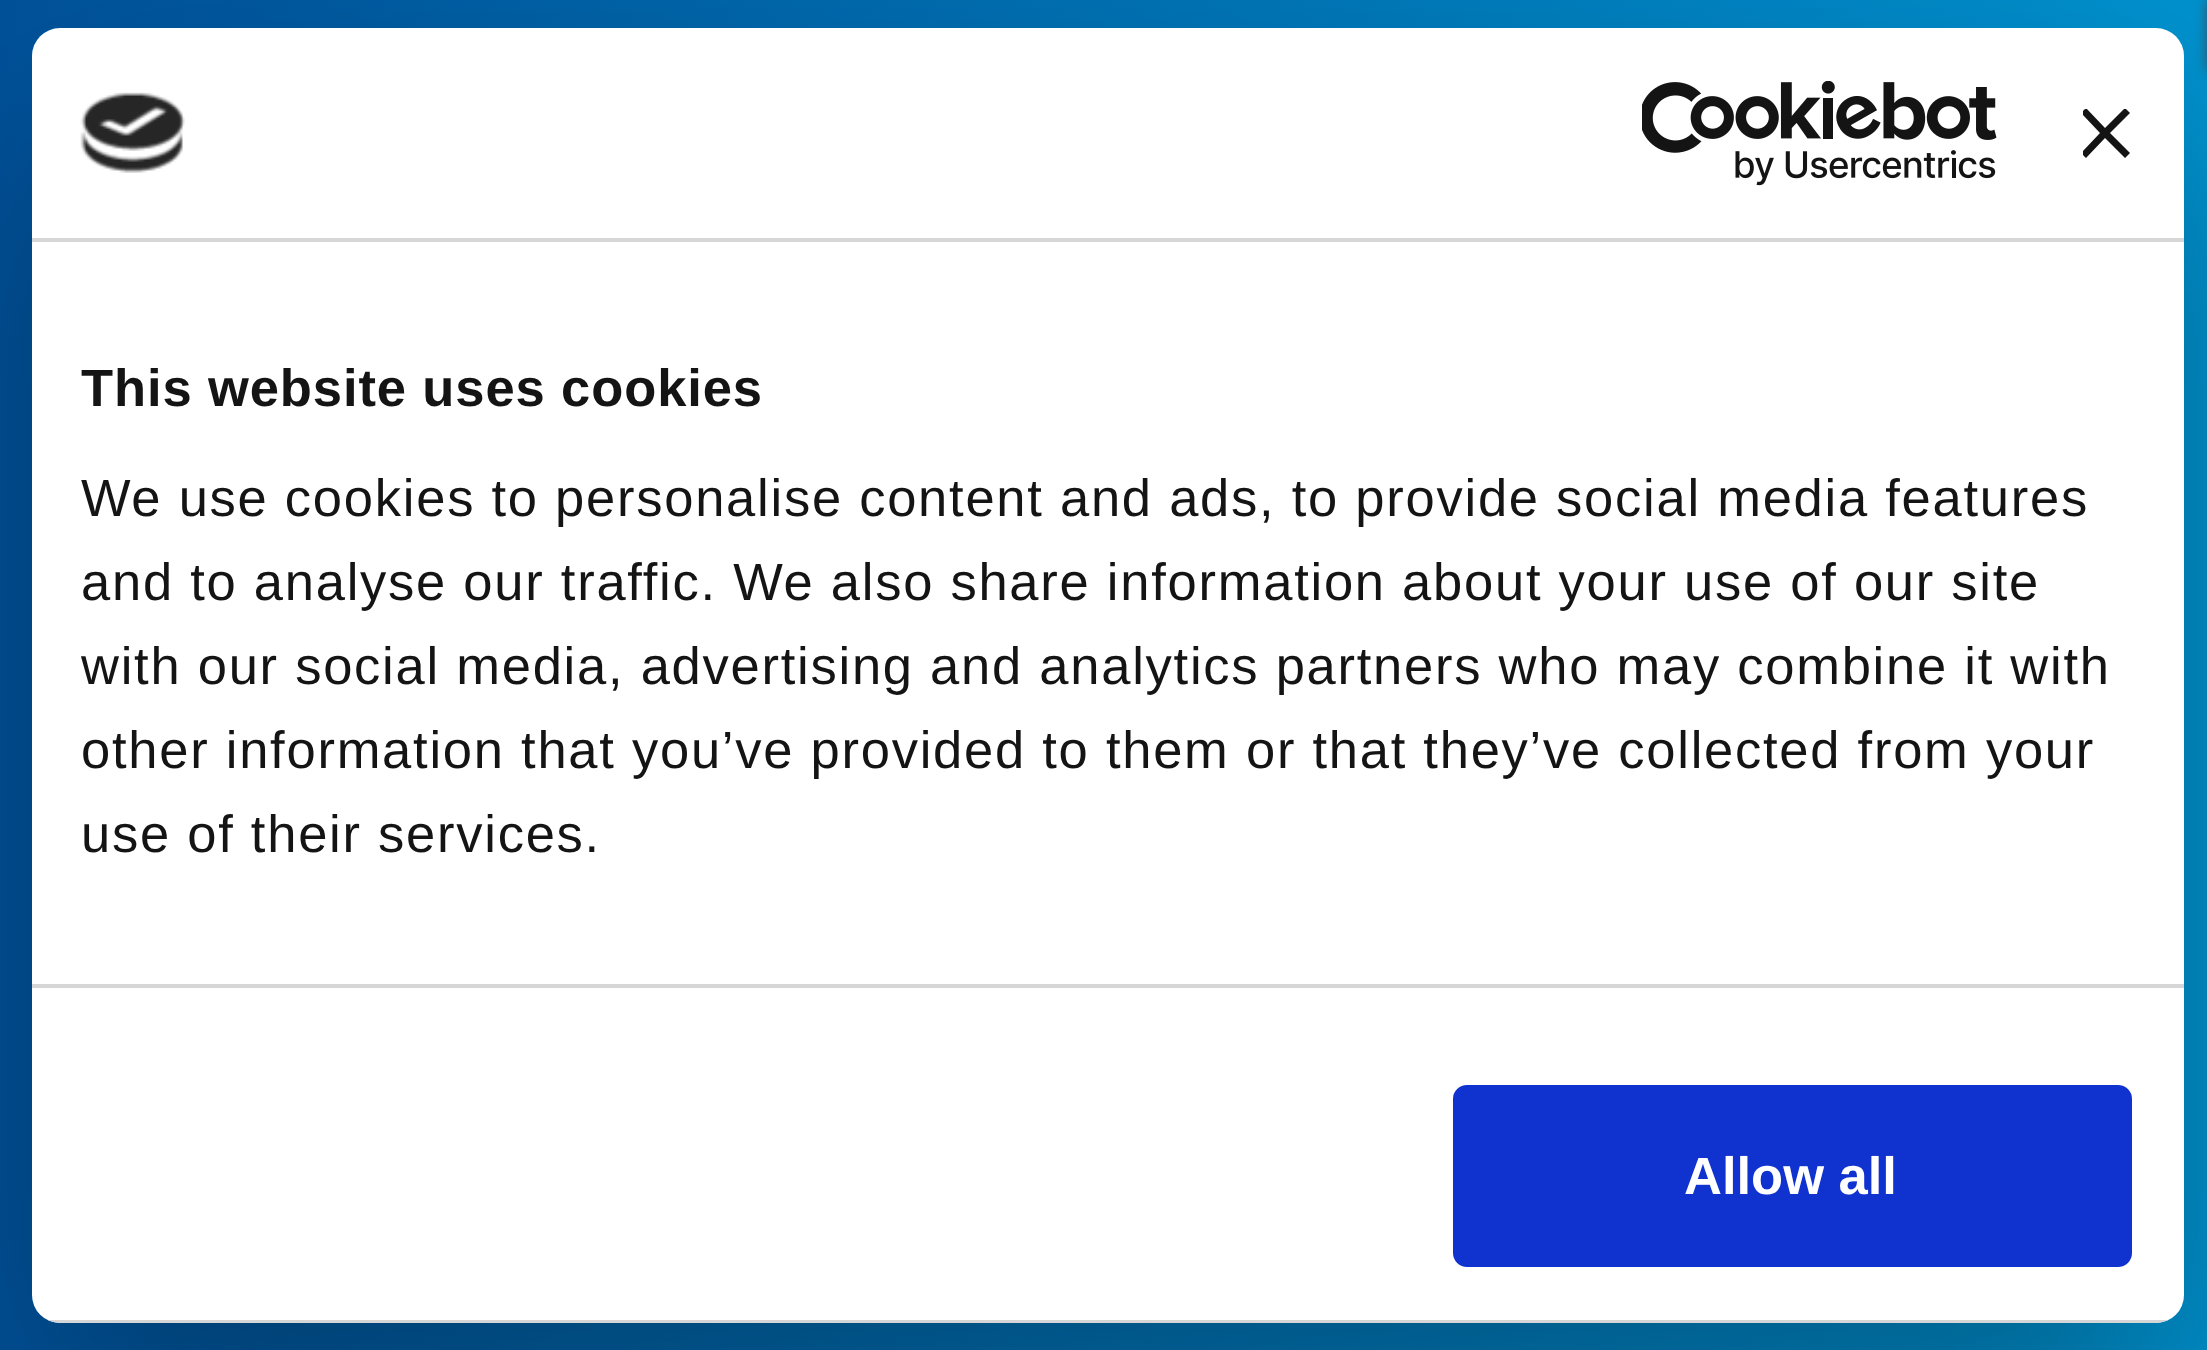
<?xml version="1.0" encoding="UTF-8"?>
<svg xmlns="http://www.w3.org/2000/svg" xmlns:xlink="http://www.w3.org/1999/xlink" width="2207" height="1350">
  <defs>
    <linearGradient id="g1" gradientUnits="userSpaceOnUse" x1="0" y1="691" x2="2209" y2="691"><stop offset="0" stop-color="#00529b" /><stop offset="1" stop-color="#0093d0" /></linearGradient>
    <clipPath id="clip1"><path d="M 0 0 h 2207 v 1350 h -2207 z m 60 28 h 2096 c 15.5 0 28 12.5 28 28 v 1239 c 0 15.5 -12.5 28 -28 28 h -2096 c -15.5 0 -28 -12.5 -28 -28 v -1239 c 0 -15.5 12.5 -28 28 -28 z" clip-rule="evenodd" /></clipPath>
    <clipPath id="clip2"><rect x="2083" y="109" width="49" height="49" /></clipPath>
    <clipPath id="clip3"><rect x="32" y="28" width="2152" height="1295" rx="28" /></clipPath>
  </defs>
  <rect width="100%" height="100%" fill="#ffffff" />
  <rect width="2207" height="1350" fill="url(#g1)" />
  <rect x="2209" width="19" height="70" fill="#4e3c3c" filter="blur(7px)" />
  <g clip-path="url(#clip1)">
    <rect x="32" y="140" width="2152" height="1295" rx="28" fill="#000000" fill-opacity="0.3" filter="blur(119px)" />
  </g>
  <rect x="32" y="28" width="2152" height="1295" rx="28" fill="#ffffff" />
  <rect x="32" y="238" width="2152" height="4" fill="#d6d6d6" />
  <image x="80" y="92" width="105" height="81" xlink:href="image1.png" />
  <image x="1642" y="81" width="355" height="105" xlink:href="image2.png" />
  <g clip-path="url(#clip2)">
    <path d="M 2130 113 l -5 -5 l -20 20 l -19 -20 l -5 5 l 19 20 l -19 20 l 5 5 l 19 -20 l 20 20 l 5 -5 l -20 -20 z" fill="#141414" />
  </g>
  <rect x="32" y="984" width="2152" height="4" fill="#d6d6d6" />
  <g clip-path="url(#clip3)">
    <rect x="47" y="1320" width="2122" height="3" fill="#d6d6d6" />
  </g>
  <rect x="1456.5" y="1088.5" width="672" height="175" rx="10.5" fill="#1032cf" stroke="#1032cf" stroke-width="7" />
  <text x="81" y="406" style="font-family: Liberation Sans; font-size: 52.5px; font-weight: bold; letter-spacing: 0.9px; fill: #141414">This website uses cookies</text>
  <text x="81" y="516" style="font-family: Liberation Sans; font-size: 52.5px; letter-spacing: 1.75px; fill: #141414">We use cookies to personalise content and ads, to provide social media features</text>
  <text x="81" y="600" style="font-family: Liberation Sans; font-size: 52.5px; letter-spacing: 1.75px; fill: #141414">and to analyse our traffic. We also share information about your use of our site</text>
  <text x="81" y="684" style="font-family: Liberation Sans; font-size: 52.5px; letter-spacing: 1.75px; fill: #141414">with our social media, advertising and analytics partners who may combine it with</text>
  <text x="81" y="768" style="font-family: Liberation Sans; font-size: 52.5px; letter-spacing: 1.75px; fill: #141414">other information that you’ve provided to them or that they’ve collected from your</text>
  <text x="81" y="852" style="font-family: Liberation Sans; font-size: 52.5px; letter-spacing: 1.75px; fill: #141414">use of their services.</text>
  <text x="1684" y="1194" style="font-family: Liberation Sans; font-size: 52.5px; font-weight: bold; fill: #ffffff">Allow all</text>
</svg>
